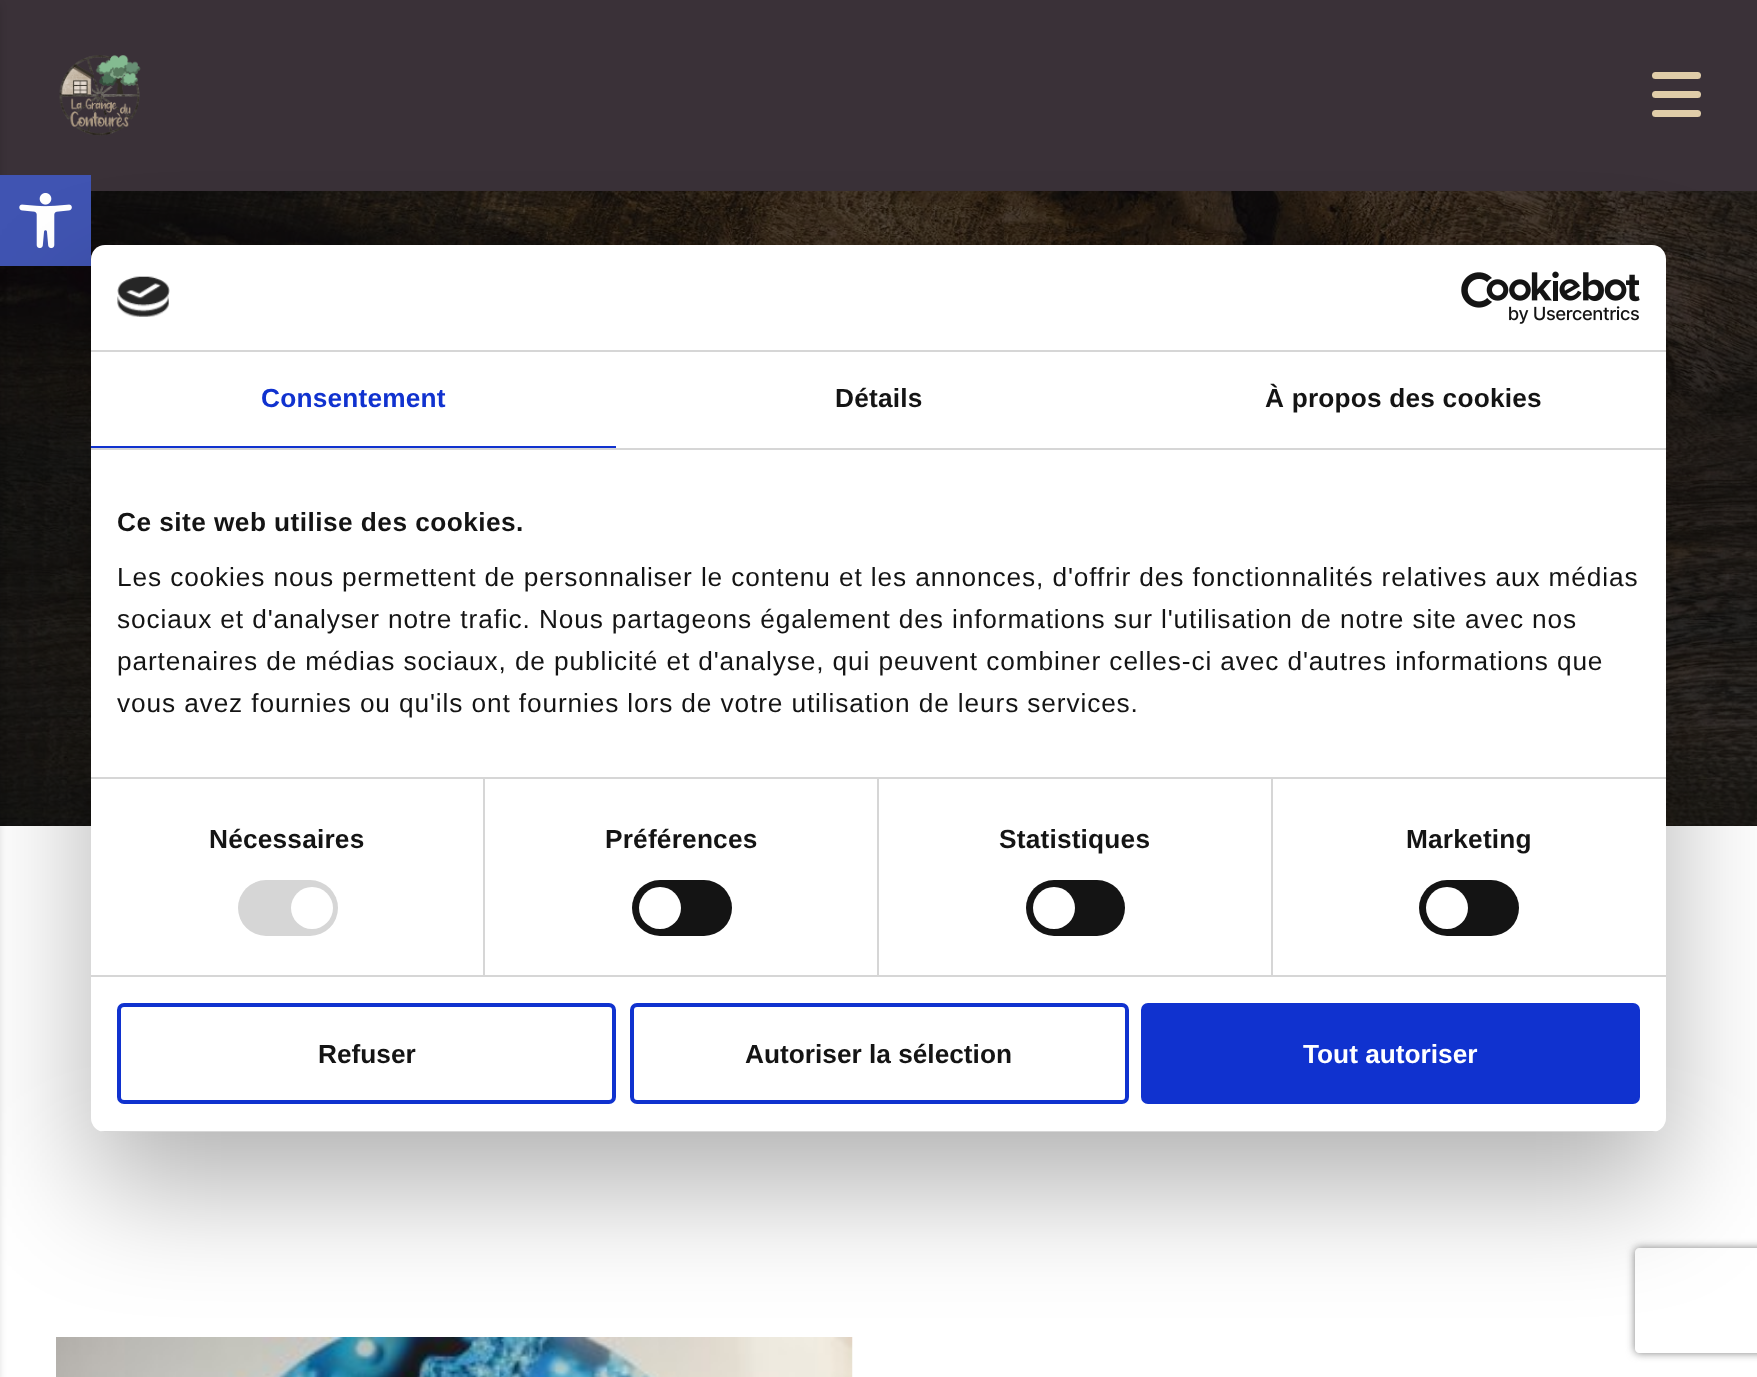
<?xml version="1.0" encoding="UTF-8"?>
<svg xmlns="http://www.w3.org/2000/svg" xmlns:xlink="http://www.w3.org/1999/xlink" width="1757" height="1377">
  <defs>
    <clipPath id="clip1"><rect x="91" y="245" width="1575" height="887" rx="14" /></clipPath>
    <clipPath id="clip2"><path d="M 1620 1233 h 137 v 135 h -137 z m 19 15 h 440 c 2 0 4 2 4 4 v 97 c 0 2 -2 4 -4 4 h -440 c -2 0 -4 -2 -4 -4 v -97 c 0 -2 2 -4 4 -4 z" clip-rule="evenodd" /></clipPath>
  </defs>
  <rect width="100%" height="100%" fill="#ffffff" />
  <rect width="1757" height="191" fill="#3a3138" />
  <image x="59" y="55" width="82" height="81" xlink:href="image1.png" />
  <rect x="1652" y="72" width="49" height="7" rx="3.5" fill="#e0cda9" />
  <rect x="1652" y="91" width="49" height="7" rx="3.5" fill="#e0cda9" />
  <rect x="1652" y="110" width="49" height="7" rx="3.5" fill="#e0cda9" />
  <image x="0" y="191" width="1757" height="635" xlink:href="image2.png" />
  <rect x="-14" y="5" width="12" height="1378" fill="#000000" fill-opacity="0.2" filter="blur(4.5px)" />
  <image x="56" y="1337" width="797" height="40" xlink:href="image3.png" />
  <rect y="175" width="91" height="91" fill="#4054b2" />
  <image x="19" y="193" width="53" height="56" xlink:href="image4.png" />
  <rect x="91" y="301" width="1575" height="887" rx="14" fill="#000000" fill-opacity="0.3" filter="blur(59.5px)" />
  <rect x="91" y="245" width="1575" height="887" rx="14" fill="#ffffff" />
  <rect x="91" y="350" width="1575" height="2" fill="#d6d6d6" />
  <image x="117" y="276" width="53" height="41" xlink:href="image5.png" />
  <image x="1461" y="271" width="179" height="53" xlink:href="image6.png" />
  <rect x="91" y="448" width="1575" height="2" fill="#d6d6d6" />
  <rect x="91" y="446" width="525" height="2" fill="#1032cf" />
  <rect x="91" y="777" width="1575" height="2" fill="#d6d6d6" />
  <rect x="91" y="975" width="1575" height="2" fill="#d6d6d6" />
  <rect x="483" y="779" width="2" height="196" fill="#d6d6d6" />
  <rect x="238" y="880" width="100" height="56" rx="28" fill="#d6d6d6" />
  <circle cx="312" cy="908" r="21" fill="#ffffff" />
  <rect x="877" y="779" width="2" height="196" fill="#d6d6d6" />
  <rect x="632" y="880" width="100" height="56" rx="28" fill="#141414" />
  <circle cx="660" cy="908" r="21" fill="#ffffff" />
  <rect x="1271" y="779" width="2" height="196" fill="#d6d6d6" />
  <rect x="1026" y="880" width="99" height="56" rx="28" fill="#141414" />
  <circle cx="1054" cy="908" r="21" fill="#ffffff" />
  <rect x="1419" y="880" width="100" height="56" rx="28" fill="#141414" />
  <circle cx="1447" cy="908" r="21" fill="#ffffff" />
  <g clip-path="url(#clip1)">
    <rect x="100" y="1131" width="1557" height="1" fill="#d6d6d6" />
  </g>
  <rect x="119" y="1005" width="495" height="97" rx="5" fill="none" stroke="#1032cf" stroke-width="4" />
  <rect x="632" y="1005" width="495" height="97" rx="5" fill="none" stroke="#1032cf" stroke-width="4" />
  <rect x="1143" y="1005" width="495" height="97" rx="5" fill="#1032cf" stroke="#1032cf" stroke-width="4" />
  <g clip-path="url(#clip2)">
    <rect x="1635" y="1248" width="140" height="105" rx="4" fill="#808080" filter="blur(4.5px)" />
  </g>
  <text x="261" y="407" style="font-family: Liberation Sans; font-size: 26.25px; font-weight: bold; letter-spacing: 0.2px; fill: #1032cf">Consentement</text>
  <text x="835" y="407" style="font-family: Liberation Sans; font-size: 26.25px; font-weight: bold; letter-spacing: 0.2px; fill: #141414">Détails</text>
  <text x="1265" y="407" style="font-family: Liberation Sans; font-size: 26.25px; font-weight: bold; letter-spacing: 0.2px; fill: #141414">À propos des cookies</text>
  <text x="117" y="531" style="font-family: Liberation Sans; font-size: 26.25px; font-weight: bold; letter-spacing: 0.45px; fill: #141414">Ce site web utilise des cookies.</text>
  <text x="117" y="586" style="font-family: Liberation Sans; font-size: 26.25px; letter-spacing: 0.88px; fill: #141414">Les cookies nous permettent de personnaliser le contenu et les annonces, d'offrir des fonctionnalités relatives aux médias</text>
  <text x="117" y="628" style="font-family: Liberation Sans; font-size: 26.25px; letter-spacing: 0.88px; fill: #141414">sociaux et d'analyser notre trafic. Nous partageons également des informations sur l'utilisation de notre site avec nos</text>
  <text x="117" y="670" style="font-family: Liberation Sans; font-size: 26.25px; letter-spacing: 0.88px; fill: #141414">partenaires de médias sociaux, de publicité et d'analyse, qui peuvent combiner celles-ci avec d'autres informations que</text>
  <text x="117" y="712" style="font-family: Liberation Sans; font-size: 26.25px; letter-spacing: 0.88px; fill: #141414">vous avez fournies ou qu'ils ont fournies lors de votre utilisation de leurs services.</text>
  <text x="209" y="848" style="font-family: Liberation Sans; font-size: 26.25px; font-weight: bold; letter-spacing: 0.2px; fill: #141414">Nécessaires</text>
  <text x="605" y="848" style="font-family: Liberation Sans; font-size: 26.25px; font-weight: bold; letter-spacing: 0.2px; fill: #141414">Préférences</text>
  <text x="999" y="848" style="font-family: Liberation Sans; font-size: 26.25px; font-weight: bold; letter-spacing: 0.2px; fill: #141414">Statistiques</text>
  <text x="1406" y="848" style="font-family: Liberation Sans; font-size: 26.25px; font-weight: bold; letter-spacing: 0.2px; fill: #141414">Marketing</text>
  <text x="318" y="1063" style="font-family: Liberation Sans; font-size: 26.25px; font-weight: bold; fill: #141414">Refuser</text>
  <text x="745" y="1063" style="font-family: Liberation Sans; font-size: 26.25px; font-weight: bold; fill: #141414">Autoriser la sélection</text>
  <text x="1303" y="1063" style="font-family: Liberation Sans; font-size: 26.25px; font-weight: bold; fill: #ffffff">Tout autoriser</text>
</svg>
